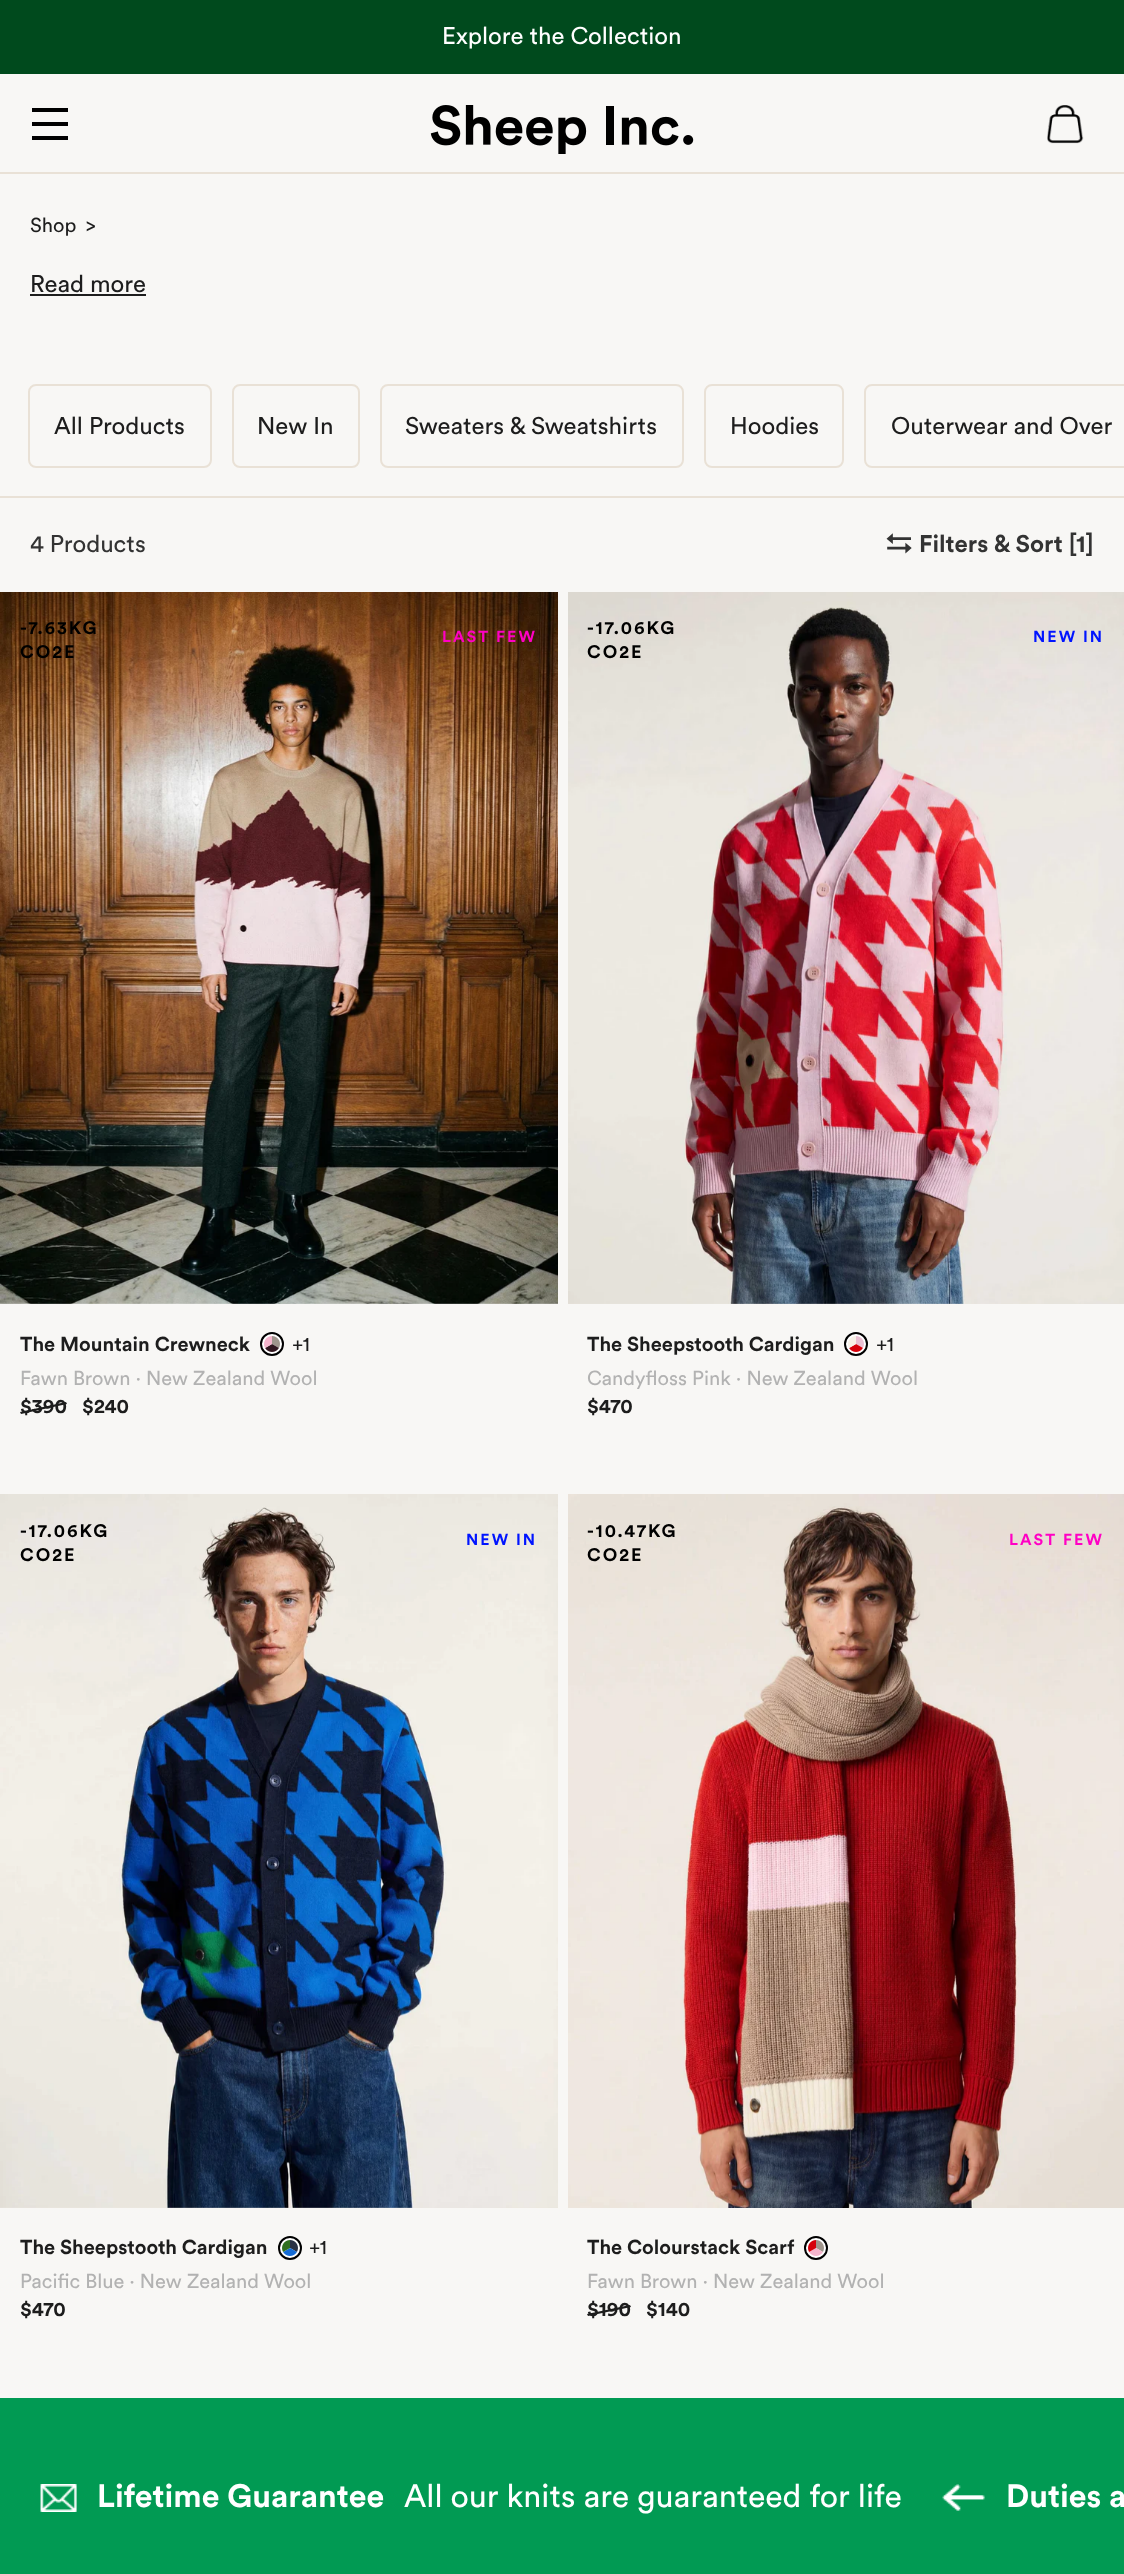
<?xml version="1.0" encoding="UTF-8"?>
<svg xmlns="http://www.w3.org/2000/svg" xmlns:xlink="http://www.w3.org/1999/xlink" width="1124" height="2574">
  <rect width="100%" height="100%" fill="#f8f7f5" />
  <rect y="172" width="1124" height="2" fill="#e9e1d6" />
  <rect width="1124" height="74" fill="#004a1d" />
  <rect x="32" y="108" width="36" height="4" fill="#000000" />
  <rect x="32" y="122" width="36" height="4" fill="#000000" />
  <rect x="32" y="136" width="36" height="4" fill="#000000" />
  <image x="430" y="105" width="264" height="49" xlink:href="image1.png" />
  <image x="1047" y="105" width="37" height="39" xlink:href="image2.png" />
  <rect x="30" y="294" width="116" height="2" fill="#1d1d1d" />
  <rect y="496" width="1124" height="2" fill="#e9e1d6" />
  <rect x="29" y="385" width="182" height="82" rx="7" fill="none" stroke="#e9e1d6" stroke-width="2" />
  <rect x="233" y="385" width="126" height="82" rx="7" fill="none" stroke="#e9e1d6" stroke-width="2" />
  <rect x="381" y="385" width="302" height="82" rx="7" fill="none" stroke="#e9e1d6" stroke-width="2" />
  <rect x="705" y="385" width="138" height="82" rx="7" fill="none" stroke="#e9e1d6" stroke-width="2" />
  <rect x="865" y="385" width="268" height="82" rx="7" fill="none" stroke="#e9e1d6" stroke-width="2" />
  <image x="0" y="592" width="558" height="712" xlink:href="image3.png" />
  <circle cx="272" cy="1344" r="11" fill="#ffffff" stroke="#000000" stroke-width="2" />
  <image x="264" y="1336" width="16" height="16" xlink:href="image4.png" />
  <path d="M 20 1412 l 46 -10 l 1 2 l -46 10 z" fill="#1d1d1d" />
  <image x="568" y="1303" width="556" height="1" xlink:href="image6.png" />
  <image x="568" y="592" width="556" height="712" xlink:href="image5.png" />
  <circle cx="856" cy="1344" r="11" fill="#ffffff" stroke="#000000" stroke-width="2" />
  <image x="848" y="1336" width="16" height="16" xlink:href="image7.png" />
  <image x="0" y="2207" width="558" height="1" xlink:href="image9.png" />
  <image x="0" y="1494" width="558" height="714" xlink:href="image8.png" />
  <circle cx="290" cy="2248" r="11" fill="#ffffff" stroke="#000000" stroke-width="2" />
  <image x="282" y="2240" width="16" height="16" xlink:href="image10.png" />
  <image x="568" y="1494" width="556" height="714" xlink:href="image11.png" />
  <circle cx="816" cy="2248" r="11" fill="#ffffff" stroke="#000000" stroke-width="2" />
  <image x="808" y="2240" width="16" height="16" xlink:href="image12.png" />
  <path d="M 587 2314 l 43 -9 l 1 2 l -43 9 z" fill="#1d1d1d" />
  <rect y="2398" width="1124" height="176" fill="#019a53" />
  <image x="40" y="2484" width="37" height="28" xlink:href="image13.png" />
  <image x="942" y="2484" width="43" height="27" xlink:href="image14.png" />
  <text x="442" y="44" style="font-family: Circular; font-size: 24px; fill: #ffffff">Explore the Collection</text>
  <text x="30" y="232" style="font-family: Circular; font-size: 20px; fill: #1d1d1d">Shop</text>
  <text x="86" y="232" style="font-family: Circular; font-size: 20px; fill: #1d1d1d">&gt;</text>
  <text x="30" y="292" style="font-family: Circular; font-size: 24px; fill: #1d1d1d">Read more</text>
  <text x="54" y="434" style="font-family: Circular; font-size: 24px; fill: #1d1d1d">All Products</text>
  <text x="257" y="434" style="font-family: Circular; font-size: 24px; fill: #1d1d1d">New In</text>
  <text x="405" y="434" style="font-family: Circular; font-size: 24px; fill: #1d1d1d">Sweaters &amp; Sweatshirts</text>
  <text x="730" y="434" style="font-family: Circular; font-size: 24px; fill: #1d1d1d">Hoodies</text>
  <text x="891" y="434" style="font-family: Circular; font-size: 24px; fill: #1d1d1d">Outerwear and Over</text>
  <text x="30" y="552" style="font-family: Circular; font-size: 24px; fill: #333333">4 Products</text>
  <text x="885" y="552" style="font-family: Circular; font-size: 24px; font-weight: bold; fill: #333333">⇆ Filters &amp; Sort [1]</text>
  <text x="20" y="634" style="font-family: Circular; font-size: 18px; font-weight: bold; letter-spacing: 2px; fill: #000000">-7.63KG</text>
  <text x="20" y="658" style="font-family: Circular; font-size: 18px; font-weight: bold; letter-spacing: 2px; fill: #000000">CO2E</text>
  <text x="442" y="642" style="font-family: Circular; font-size: 16px; font-weight: bold; letter-spacing: 2px; fill: #ff00c4">LAST FEW</text>
  <text x="20" y="1351" style="font-family: Circular; font-size: 20px; font-weight: bold; fill: #1d1d1d">The Mountain Crewneck</text>
  <text x="292" y="1351" style="font-family: Circular; font-size: 20px; fill: #1d1d1d">+1</text>
  <text x="20" y="1385" style="font-family: Circular; font-size: 20px; fill: #b2b2b2">Fawn Brown ⋅ New Zealand Wool</text>
  <text x="20" y="1413" style="font-family: Circular; font-size: 20px; font-weight: bold; fill: #1d1d1d">$390</text>
  <text x="82" y="1413" style="font-family: Circular; font-size: 20px; font-weight: bold; fill: #1d1d1d">$240</text>
  <text x="587" y="634" style="font-family: Circular; font-size: 18px; font-weight: bold; letter-spacing: 2px; fill: #000000">-17.06KG</text>
  <text x="587" y="658" style="font-family: Circular; font-size: 18px; font-weight: bold; letter-spacing: 2px; fill: #000000">CO2E</text>
  <text x="1033" y="642" style="font-family: Circular; font-size: 16px; font-weight: bold; letter-spacing: 2px; fill: #0014ff">NEW IN</text>
  <text x="587" y="1351" style="font-family: Circular; font-size: 20px; font-weight: bold; fill: #1d1d1d">The Sheepstooth Cardigan</text>
  <text x="876" y="1351" style="font-family: Circular; font-size: 20px; fill: #1d1d1d">+1</text>
  <text x="587" y="1385" style="font-family: Circular; font-size: 20px; fill: #b2b2b2">Candyfloss Pink ⋅ New Zealand Wool</text>
  <text x="587" y="1413" style="font-family: Circular; font-size: 20px; font-weight: bold; fill: #1d1d1d">$470</text>
  <text x="20" y="1537" style="font-family: Circular; font-size: 18px; font-weight: bold; letter-spacing: 2px; fill: #000000">-17.06KG</text>
  <text x="20" y="1561" style="font-family: Circular; font-size: 18px; font-weight: bold; letter-spacing: 2px; fill: #000000">CO2E</text>
  <text x="466" y="1545" style="font-family: Circular; font-size: 16px; font-weight: bold; letter-spacing: 2px; fill: #0014ff">NEW IN</text>
  <text x="20" y="2254" style="font-family: Circular; font-size: 20px; font-weight: bold; fill: #1d1d1d">The Sheepstooth Cardigan</text>
  <text x="309" y="2254" style="font-family: Circular; font-size: 20px; fill: #1d1d1d">+1</text>
  <text x="20" y="2288" style="font-family: Circular; font-size: 20px; fill: #b2b2b2">Pacific Blue ⋅ New Zealand Wool</text>
  <text x="20" y="2316" style="font-family: Circular; font-size: 20px; font-weight: bold; fill: #1d1d1d">$470</text>
  <text x="587" y="1537" style="font-family: Circular; font-size: 18px; font-weight: bold; letter-spacing: 2px; fill: #000000">-10.47KG</text>
  <text x="587" y="1561" style="font-family: Circular; font-size: 18px; font-weight: bold; letter-spacing: 2px; fill: #000000">CO2E</text>
  <text x="1009" y="1545" style="font-family: Circular; font-size: 16px; font-weight: bold; letter-spacing: 2px; fill: #ff00c4">LAST FEW</text>
  <text x="587" y="2254" style="font-family: Circular; font-size: 20px; font-weight: bold; fill: #1d1d1d">The Colourstack Scarf</text>
  <text x="587" y="2288" style="font-family: Circular; font-size: 20px; fill: #b2b2b2">Fawn Brown ⋅ New Zealand Wool</text>
  <text x="587" y="2316" style="font-family: Circular; font-size: 20px; font-weight: bold; fill: #1d1d1d">$190</text>
  <text x="646" y="2316" style="font-family: Circular; font-size: 20px; font-weight: bold; fill: #1d1d1d">$140</text>
  <text x="97" y="2507" style="font-family: Circular; font-size: 32px; font-weight: bold; fill: #ffffff">Lifetime Guarantee</text>
  <text x="404" y="2507" style="font-family: Circular; font-size: 32px; fill: #ffffff">All our knits are guaranteed for life</text>
  <text x="1006" y="2507" style="font-family: Circular; font-size: 32px; font-weight: bold; fill: #ffffff">Duties a</text>
</svg>
